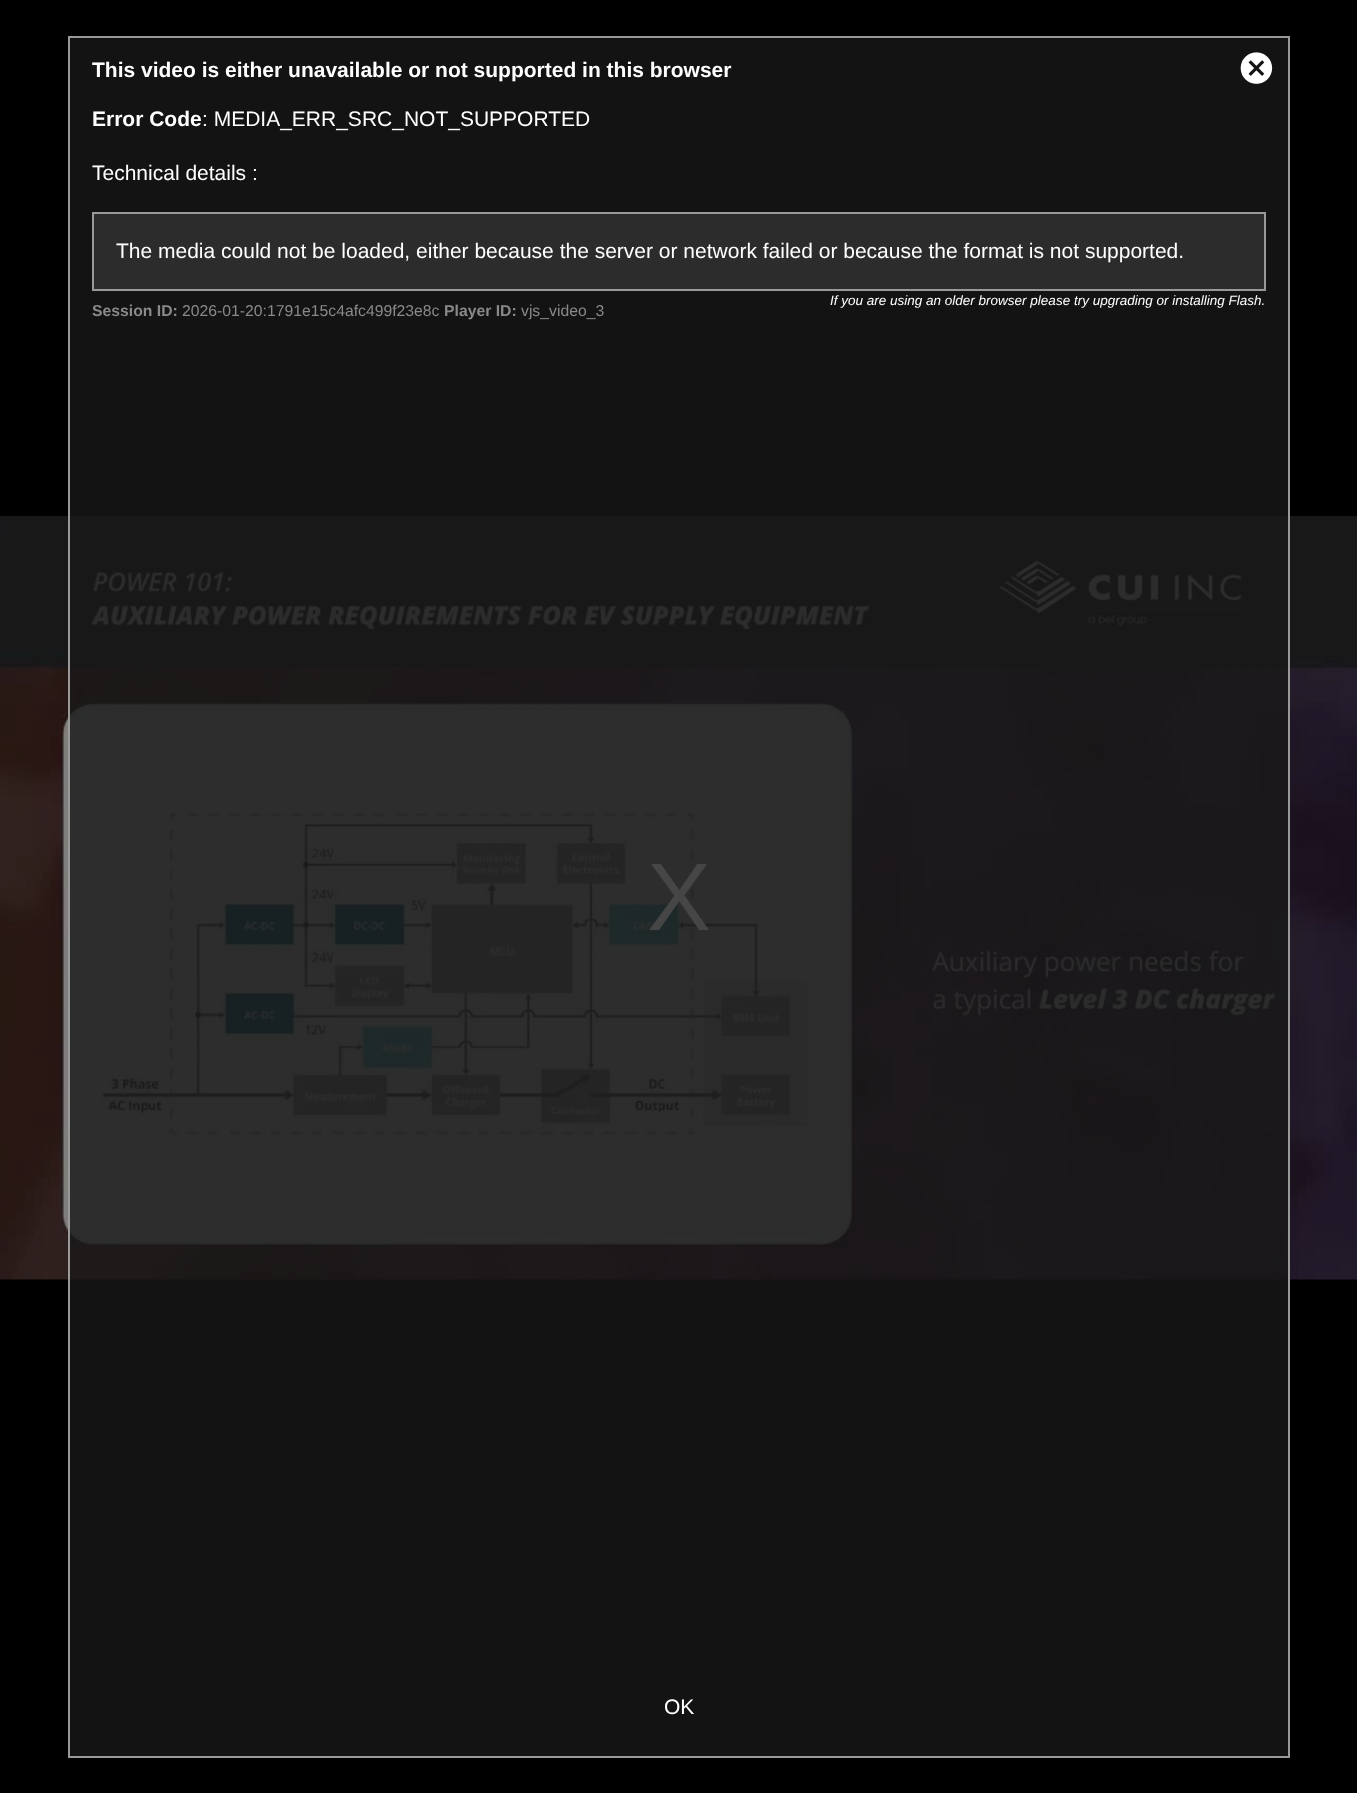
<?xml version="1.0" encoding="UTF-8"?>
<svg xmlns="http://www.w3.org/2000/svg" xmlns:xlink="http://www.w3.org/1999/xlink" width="1357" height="1793">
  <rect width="100%" height="100%" fill="#000000" />
  <rect x="70" y="38" width="1218" height="1718" fill="#131313" />
  <image x="0" y="516" width="1357" height="764" xlink:href="image1.png" />
  <rect x="69" y="37" width="1220" height="1720" fill="none" stroke="#999999" stroke-width="2" />
  <image x="1240" y="52" width="33" height="32" xlink:href="image2.png" />
  <rect x="93" y="213" width="1172" height="77" fill="#2c2c2c" stroke="#999999" stroke-width="2" />
  <text x="92" y="77" style="font-family: Liberation Sans; font-size: 21px; font-weight: bold; fill: #ffffff">This video is either unavailable or not supported in this browser</text>
  <text x="92" y="126" style="font-family: Liberation Sans; font-size: 21px; font-weight: bold; fill: #ffffff">Error Code</text>
  <text x="202" y="126" style="font-family: Liberation Sans; font-size: 21px; fill: #ffffff">: MEDIA_ERR_SRC_NOT_SUPPORTED</text>
  <text x="92" y="180" style="font-family: Liberation Sans; font-size: 21px; fill: #ffffff">Technical details :</text>
  <text x="116" y="258" style="font-family: Liberation Sans; font-size: 21px; fill: #ffffff">The media could not be loaded, either because the server or network failed or because the format is not supported.</text>
  <text x="830" y="305" style="font-family: Liberation Sans; font-size: 13.5px; font-style: italic; fill: #ffffff">If you are using an older browser please try upgrading or installing Flash.</text>
  <text x="92" y="316" style="font-family: Liberation Sans; font-size: 15.75px; font-weight: bold; fill: #898989">Session ID:</text>
  <text x="182" y="316" style="font-family: Liberation Sans; font-size: 15.75px; fill: #898989">2026-01-20:1791e15c4afc499f23e8c</text>
  <text x="444" y="316" style="font-family: Liberation Sans; font-size: 15.75px; font-weight: bold; fill: #898989">Player ID:</text>
  <text x="521" y="316" style="font-family: Liberation Sans; font-size: 15.75px; fill: #898989">vjs_video_3</text>
  <text x="664" y="1714" style="font-family: Liberation Sans; font-size: 21px; fill: #ffffff">OK</text>
  <text x="647" y="930" style="font-family: Liberation Sans; font-size: 96px; fill: #464646">X</text>
</svg>
